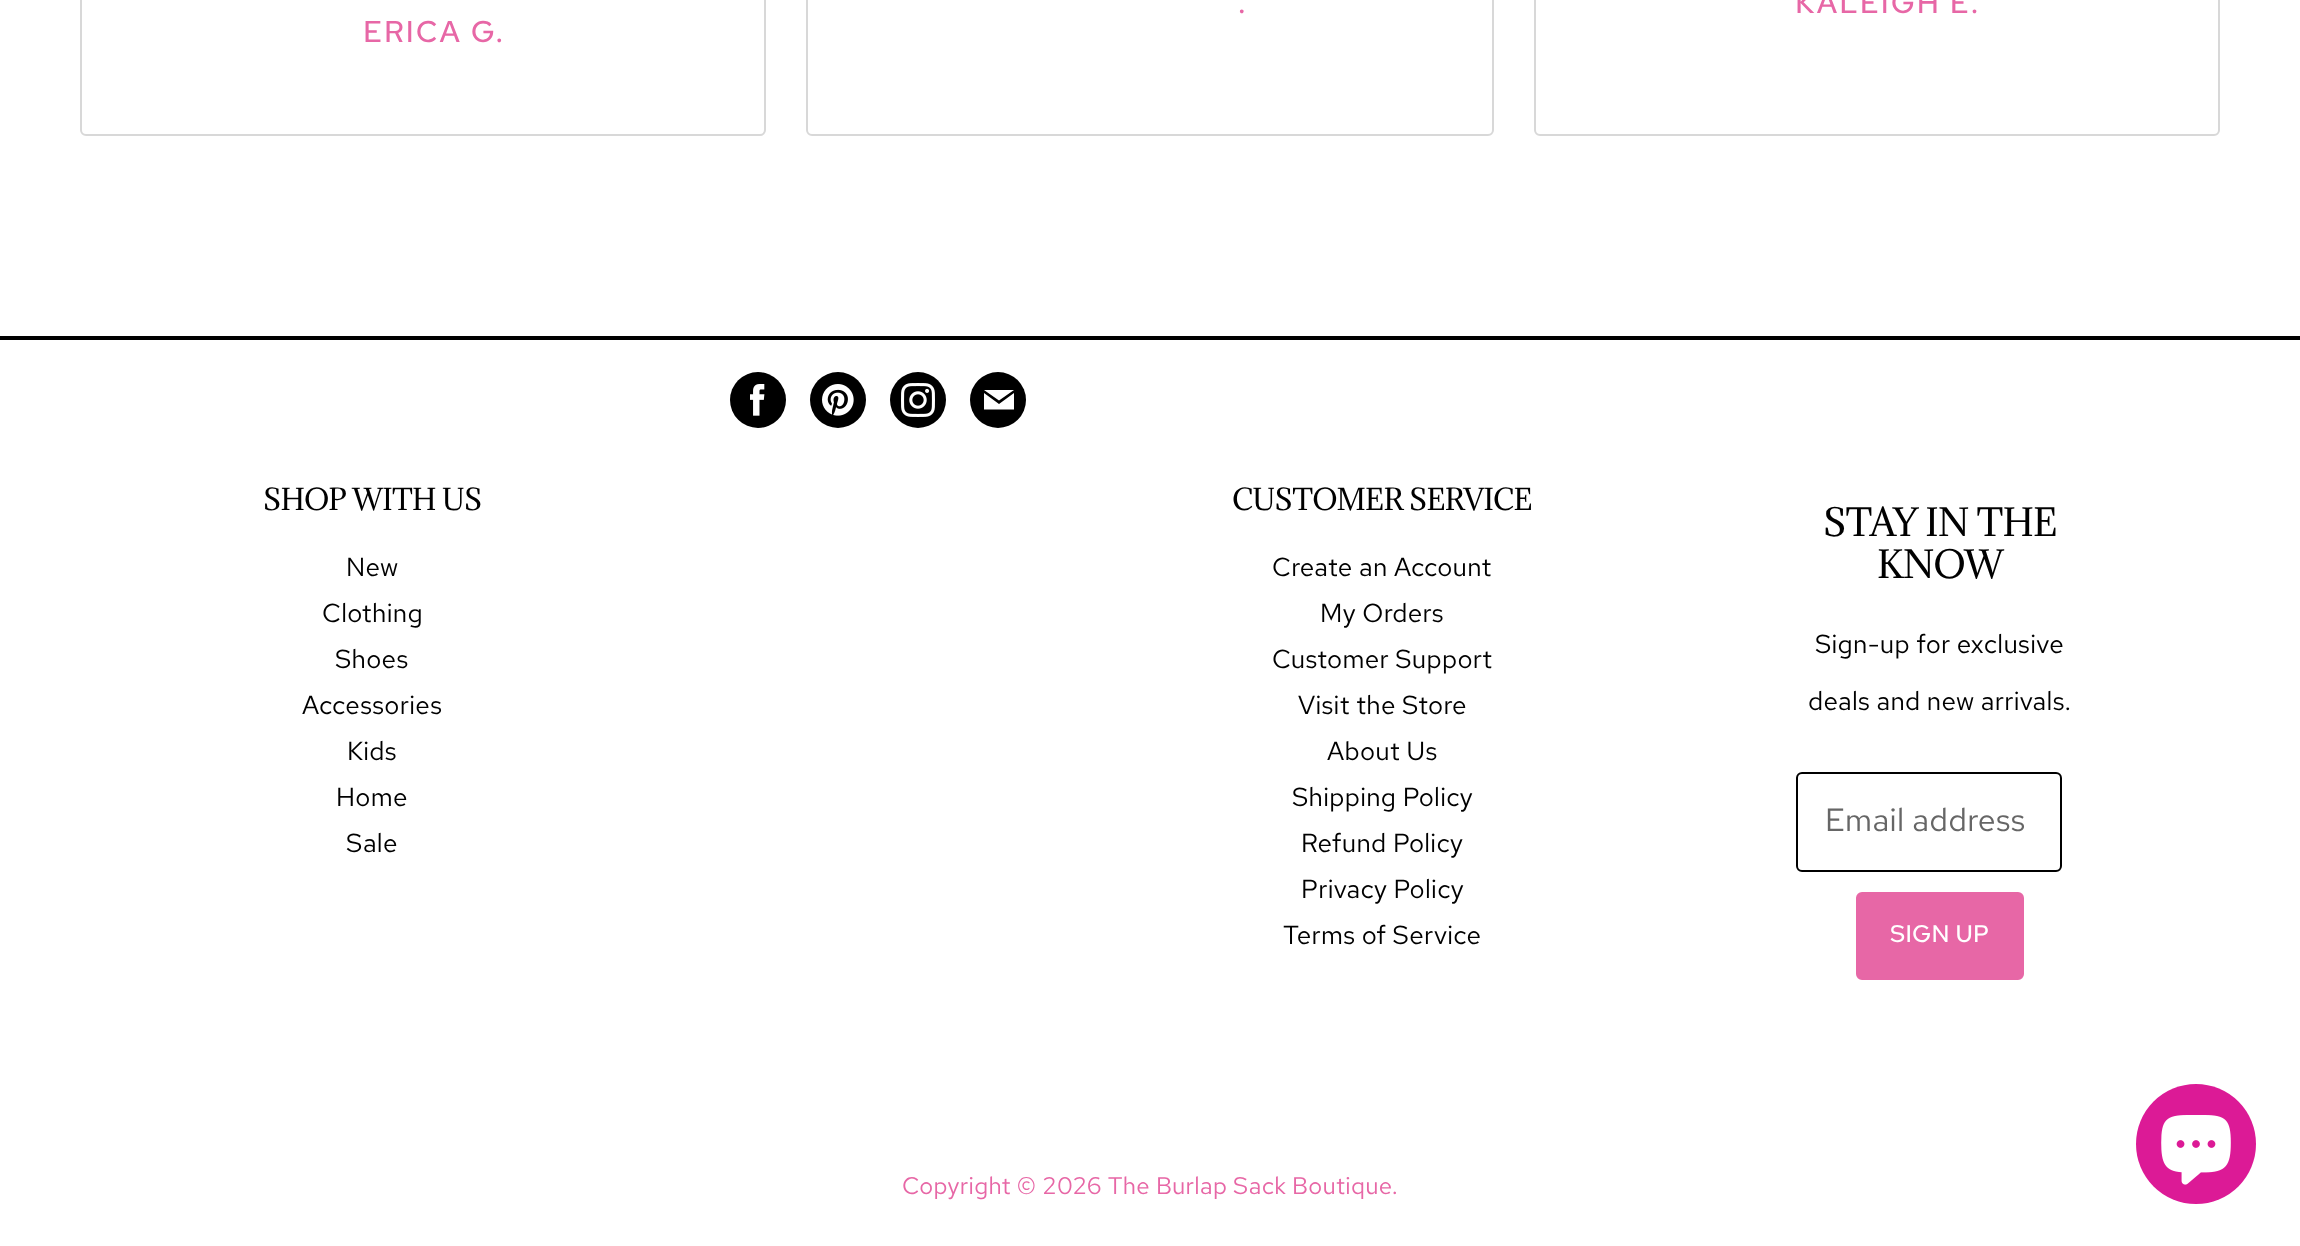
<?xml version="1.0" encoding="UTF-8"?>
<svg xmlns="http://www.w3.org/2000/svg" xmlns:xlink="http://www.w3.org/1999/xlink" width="2300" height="1246">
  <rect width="100%" height="100%" fill="#ffffff" />
  <rect x="807" y="-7" width="686" height="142" rx="5" fill="none" stroke="#d8d8d8" stroke-width="2" />
  <rect x="1535" y="-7" width="684" height="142" rx="5" fill="none" stroke="#d8d8d8" stroke-width="2" />
  <rect x="81" y="-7" width="684" height="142" rx="5" fill="none" stroke="#d8d8d8" stroke-width="2" />
  <rect y="336" width="2300" height="4" fill="#000000" />
  <circle cx="758" cy="400" r="28" fill="#000000" />
  <image x="750" y="384" width="15" height="32" xlink:href="image1.png" />
  <circle cx="838" cy="400" r="28" fill="#000000" />
  <image x="822" y="384" width="32" height="32" xlink:href="image2.png" />
  <circle cx="918" cy="400" r="28" fill="#000000" />
  <image x="901" y="383" width="34" height="34" xlink:href="image3.png" />
  <circle cx="998" cy="400" r="28" fill="#000000" />
  <path d="M 1014 390 h -30 l 15 10.5 z m -15 14 l -15 -11 v 16.5 h 30 v -16.5 z" fill="#ffffff" fill-rule="evenodd" />
  <rect x="1797" y="773" width="264" height="98" rx="5" fill="none" stroke="#000000" stroke-width="2" />
  <rect x="1857" y="893" width="166" height="86" rx="5" fill="#e767a6" stroke="#e767a6" stroke-width="2" />
  <circle cx="2196" cy="1144" r="60" fill="#dc1a96" />
  <image x="2161" y="1115" width="70" height="70" xlink:href="image4.png" />
  <text x="1238" y="13" style="font-family: Red Hat Text; font-size: 30px; font-weight: 500; letter-spacing: 2px; fill: #e767a6">.</text>
  <text x="1795" y="13" style="font-family: Red Hat Text; font-size: 30px; font-weight: 500; letter-spacing: 2px; fill: #e767a6">KALEIGH E.</text>
  <text x="363" y="42" style="font-family: Red Hat Text; font-size: 30px; font-weight: 500; letter-spacing: 2px; fill: #e767a6">ERICA G.</text>
  <text x="263" y="510" style="font-family: Adamina; font-size: 28px; letter-spacing: -0.75px; fill: #000000">SHOP WITH US</text>
  <text x="346" y="576" style="font-family: Red Hat Text; font-size: 26px; letter-spacing: 0.3px; fill: #000000">New</text>
  <text x="322" y="622" style="font-family: Red Hat Text; font-size: 26px; letter-spacing: 0.3px; fill: #000000">Clothing</text>
  <text x="335" y="668" style="font-family: Red Hat Text; font-size: 26px; letter-spacing: 0.3px; fill: #000000">Shoes</text>
  <text x="302" y="714" style="font-family: Red Hat Text; font-size: 26px; letter-spacing: 0.3px; fill: #000000">Accessories</text>
  <text x="347" y="760" style="font-family: Red Hat Text; font-size: 26px; letter-spacing: 0.3px; fill: #000000">Kids</text>
  <text x="336" y="806" style="font-family: Red Hat Text; font-size: 26px; letter-spacing: 0.3px; fill: #000000">Home</text>
  <text x="346" y="852" style="font-family: Red Hat Text; font-size: 26px; letter-spacing: 0.3px; fill: #000000">Sale</text>
  <text x="1232" y="510" style="font-family: Adamina; font-size: 28px; letter-spacing: -0.75px; fill: #000000">CUSTOMER SERVICE</text>
  <text x="1272" y="576" style="font-family: Red Hat Text; font-size: 26px; letter-spacing: 0.3px; fill: #000000">Create an Account</text>
  <text x="1320" y="622" style="font-family: Red Hat Text; font-size: 26px; letter-spacing: 0.3px; fill: #000000">My Orders</text>
  <text x="1272" y="668" style="font-family: Red Hat Text; font-size: 26px; letter-spacing: 0.3px; fill: #000000">Customer Support</text>
  <text x="1298" y="714" style="font-family: Red Hat Text; font-size: 26px; letter-spacing: 0.3px; fill: #000000">Visit the Store</text>
  <text x="1327" y="760" style="font-family: Red Hat Text; font-size: 26px; letter-spacing: 0.3px; fill: #000000">About Us</text>
  <text x="1292" y="806" style="font-family: Red Hat Text; font-size: 26px; letter-spacing: 0.3px; fill: #000000">Shipping Policy</text>
  <text x="1301" y="852" style="font-family: Red Hat Text; font-size: 26px; letter-spacing: 0.3px; fill: #000000">Refund Policy</text>
  <text x="1301" y="898" style="font-family: Red Hat Text; font-size: 26px; letter-spacing: 0.3px; fill: #000000">Privacy Policy</text>
  <text x="1283" y="944" style="font-family: Red Hat Text; font-size: 26px; letter-spacing: 0.3px; fill: #000000">Terms of Service</text>
  <text x="1823" y="536" style="font-family: Adamina; font-size: 36px; letter-spacing: -0.9px; fill: #000000">STAY IN THE</text>
  <text x="1877" y="578" style="font-family: Adamina; font-size: 36px; letter-spacing: -0.9px; fill: #000000">KNOW</text>
  <text x="1815" y="653" style="font-family: Red Hat Text; font-size: 26px; letter-spacing: 0.3px; fill: #000000">Sign-up for exclusive</text>
  <text x="1808" y="710" style="font-family: Red Hat Text; font-size: 26px; letter-spacing: 0.3px; fill: #000000">deals and new arrivals.</text>
  <text x="1825" y="831" style="font-family: Red Hat Text; font-size: 32px; letter-spacing: 0.3px; fill: #666666">Email address</text>
  <text x="1890" y="942" style="font-family: Red Hat Text; font-size: 24px; font-weight: 500; letter-spacing: 0.25px; fill: #ffffff">SIGN UP</text>
  <text x="902" y="1194" style="font-family: Red Hat Text; font-size: 24px; letter-spacing: 0.3px; fill: #e767a6">Copyright © 2026 The Burlap Sack Boutique.</text>
</svg>
